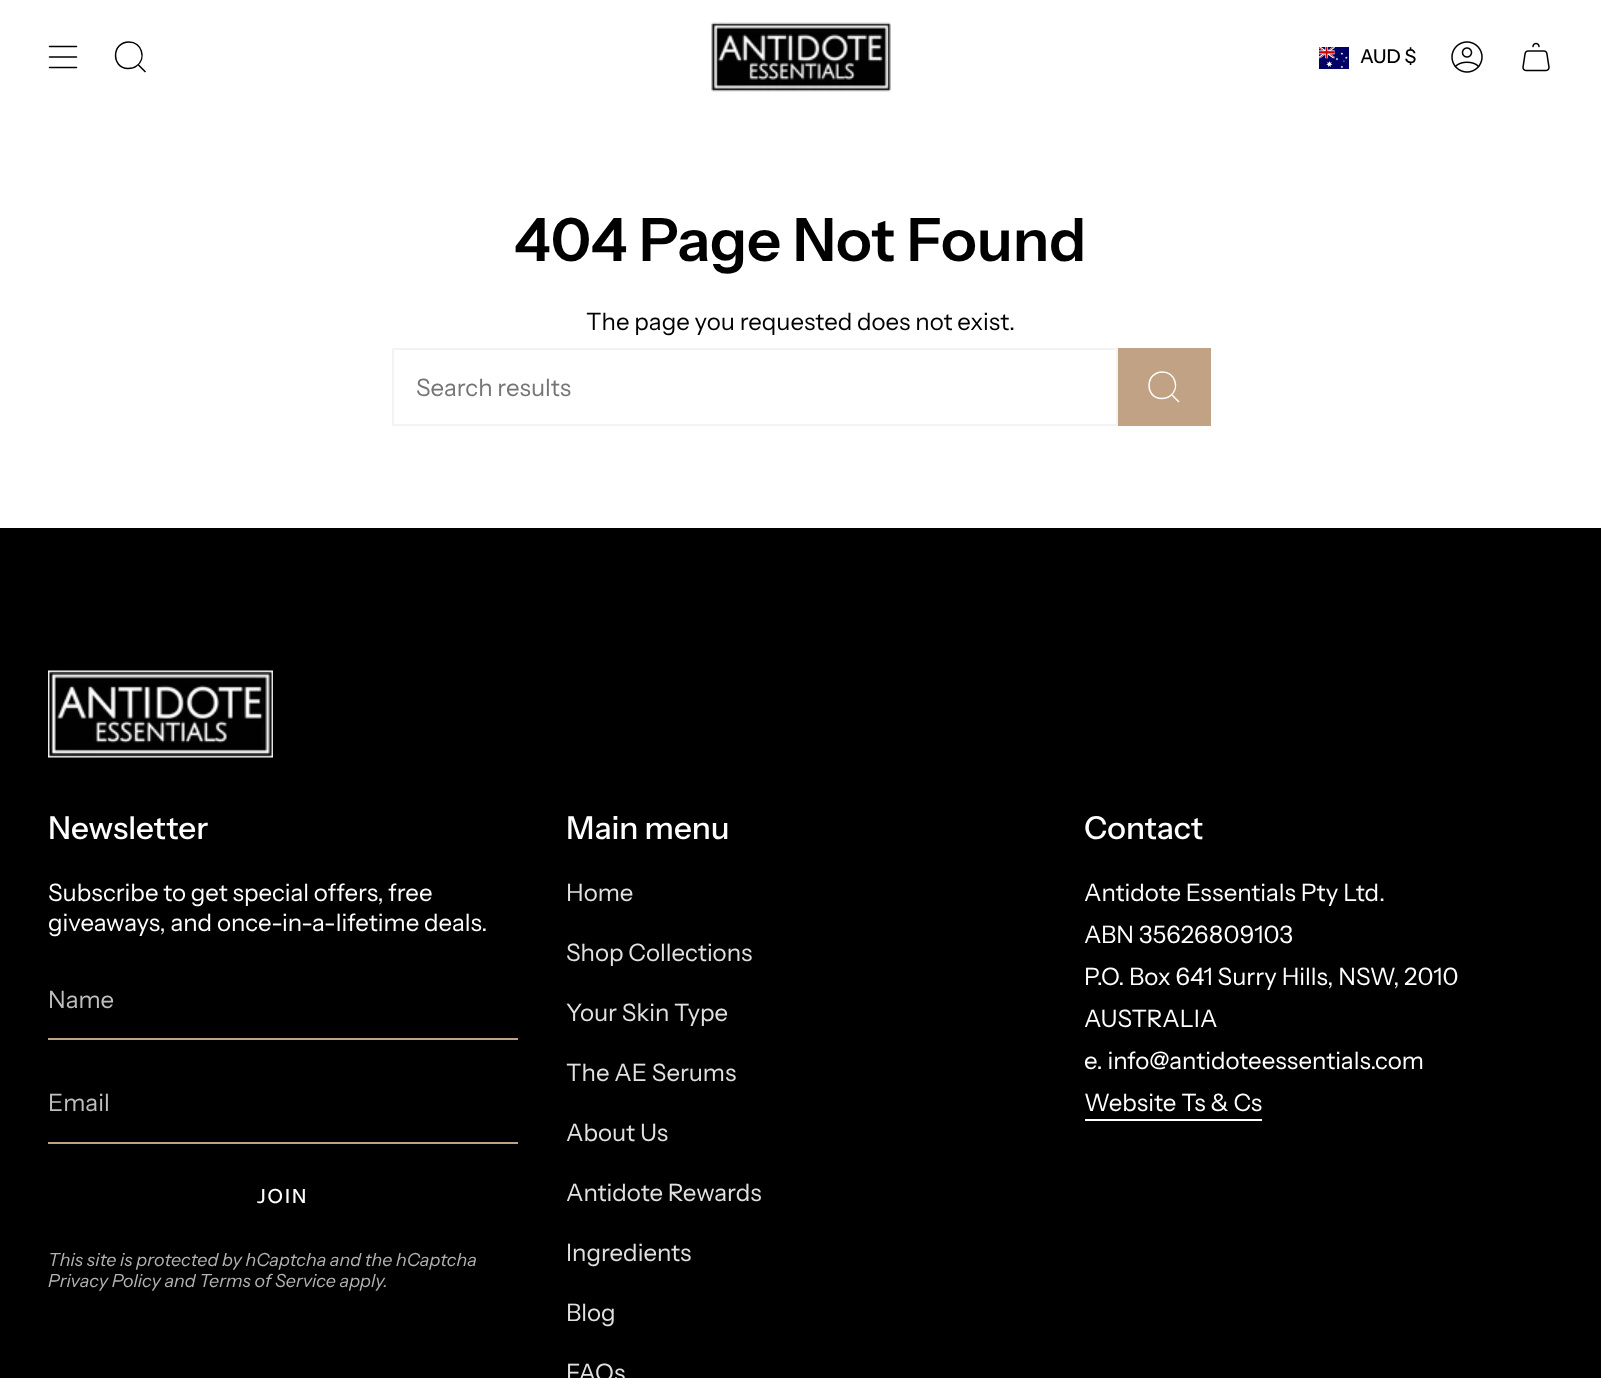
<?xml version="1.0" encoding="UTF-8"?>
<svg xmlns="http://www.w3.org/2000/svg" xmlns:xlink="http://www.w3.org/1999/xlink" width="1601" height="1378">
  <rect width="100%" height="100%" fill="#ffffff" />
  <path d="M 49.5 46.5 h 27 m -27 10.5 h 27 m -27 10.5 h 27" fill="none" stroke="#000000" stroke-width="1.5" stroke-linecap="round" stroke-linejoin="round" />
  <path d="M 129 42 c 12.5 0 18 16.5 7.5 24 c -2.5 2 -5.5 2.5 -8.5 2.5 c -17 -0.5 -16.5 -26.5 1 -26.5 z m 9 22.5 l 7.5 7.5" fill="none" stroke="#000000" stroke-width="1.5" />
  <image x="711" y="22" width="180" height="70" xlink:href="image1.png" />
  <image x="1319" y="47" width="30" height="22" xlink:href="image2.png" />
  <image x="1451" y="41" width="32" height="32" xlink:href="image3.png" />
  <image x="1522" y="42" width="28" height="30" xlink:href="image4.png" />
  <rect x="393" y="349" width="724" height="76" fill="none" stroke="#f3f3f3" stroke-width="2" />
  <rect x="1118" y="348" width="93" height="78" fill="#c2a284" />
  <path d="M 1162.5 372 c 12.5 0 18 16.5 7.5 24 c -2.5 2 -5.5 2.5 -8.5 2.5 c -17 -0.5 -16.5 -26.5 1 -26.5 z m 9 22.5 l 7.5 7.5" fill="none" stroke="#ffffff" stroke-width="1.5" />
  <rect y="528" width="1601" height="850" fill="#000000" />
  <image x="48" y="670" width="225" height="88" xlink:href="image5.png" />
  <rect x="48" y="1038" width="470" height="2" fill="#c2a284" />
  <rect x="48" y="1142" width="470" height="2" fill="#c2a284" />
  <rect x="1085" y="1119" width="177" height="2" fill="#ffffff" />
  <text x="1360" y="63" style="font-family: Instrument Sans; font-size: 19px; font-weight: 500; fill: #000000">AUD $</text>
  <text x="514" y="261" style="font-family: Instrument Sans; font-size: 59.75px; font-weight: 600; fill: #000000">404 Page Not Found</text>
  <text x="586" y="330" style="font-family: Instrument Sans; font-size: 24px; fill: #000000">The page you requested does not exist.</text>
  <text x="416" y="396" style="font-family: Instrument Sans; font-size: 24px; fill: #757575">Search results</text>
  <text x="48" y="839" style="font-family: Instrument Sans; font-size: 31.5px; font-weight: 500; fill: #ffffff">Newsletter</text>
  <text x="48" y="901" style="font-family: Instrument Sans; font-size: 24px; fill: #ffffff">Subscribe to get special offers, free</text>
  <text x="48" y="931" style="font-family: Instrument Sans; font-size: 24px; fill: #ffffff">giveaways, and once-in-a-lifetime deals.</text>
  <text x="48" y="1008" style="font-family: Instrument Sans; font-size: 24px; fill: #bfbfbf">Name</text>
  <text x="48" y="1111" style="font-family: Instrument Sans; font-size: 24px; fill: #bfbfbf">Email</text>
  <text x="257" y="1203" style="font-family: Instrument Sans; font-size: 19.5px; font-weight: 500; letter-spacing: 2px; fill: #ffffff">JOIN</text>
  <text x="48" y="1266" style="font-family: Instrument Sans; font-size: 18px; font-style: italic; fill: #b3b3b3">This site is protected by hCaptcha and the hCaptcha</text>
  <text x="48" y="1287" style="font-family: Instrument Sans; font-size: 18px; font-style: italic; fill: #b3b3b3">Privacy Policy and Terms of Service apply.</text>
  <text x="566" y="839" style="font-family: Instrument Sans; font-size: 31.5px; font-weight: 500; fill: #ffffff">Main menu</text>
  <text x="566" y="901" style="font-family: Instrument Sans; font-size: 24px; fill: #e1e1e1">Home</text>
  <text x="566" y="961" style="font-family: Instrument Sans; font-size: 24px; fill: #e1e1e1">Shop Collections</text>
  <text x="566" y="1021" style="font-family: Instrument Sans; font-size: 24px; fill: #e1e1e1">Your Skin Type</text>
  <text x="566" y="1081" style="font-family: Instrument Sans; font-size: 24px; fill: #e1e1e1">The AE Serums</text>
  <text x="566" y="1141" style="font-family: Instrument Sans; font-size: 24px; fill: #e1e1e1">About Us</text>
  <text x="566" y="1201" style="font-family: Instrument Sans; font-size: 24px; fill: #e1e1e1">Antidote Rewards</text>
  <text x="566" y="1261" style="font-family: Instrument Sans; font-size: 24px; fill: #e1e1e1">Ingredients</text>
  <text x="566" y="1321" style="font-family: Instrument Sans; font-size: 24px; fill: #e1e1e1">Blog</text>
  <text x="566" y="1381" style="font-family: Instrument Sans; font-size: 24px; fill: #e1e1e1">FAQs</text>
  <text x="1084" y="839" style="font-family: Instrument Sans; font-size: 31.5px; font-weight: 500; fill: #ffffff">Contact</text>
  <text x="1084" y="901" style="font-family: Instrument Sans; font-size: 24px; fill: #ffffff">Antidote Essentials Pty Ltd.</text>
  <text x="1084" y="943" style="font-family: Instrument Sans; font-size: 24px; fill: #ffffff">ABN 35626809103</text>
  <text x="1084" y="985" style="font-family: Instrument Sans; font-size: 24px; fill: #ffffff">P.O. Box 641 Surry Hills, NSW, 2010</text>
  <text x="1084" y="1027" style="font-family: Instrument Sans; font-size: 24px; fill: #ffffff">AUSTRALIA</text>
  <text x="1084" y="1069" style="font-family: Instrument Sans; font-size: 24px; fill: #ffffff">e. info@antidoteessentials.com</text>
  <text x="1084" y="1111" style="font-family: Instrument Sans; font-size: 24px; fill: #ffffff">Website Ts &amp; Cs</text>
</svg>
